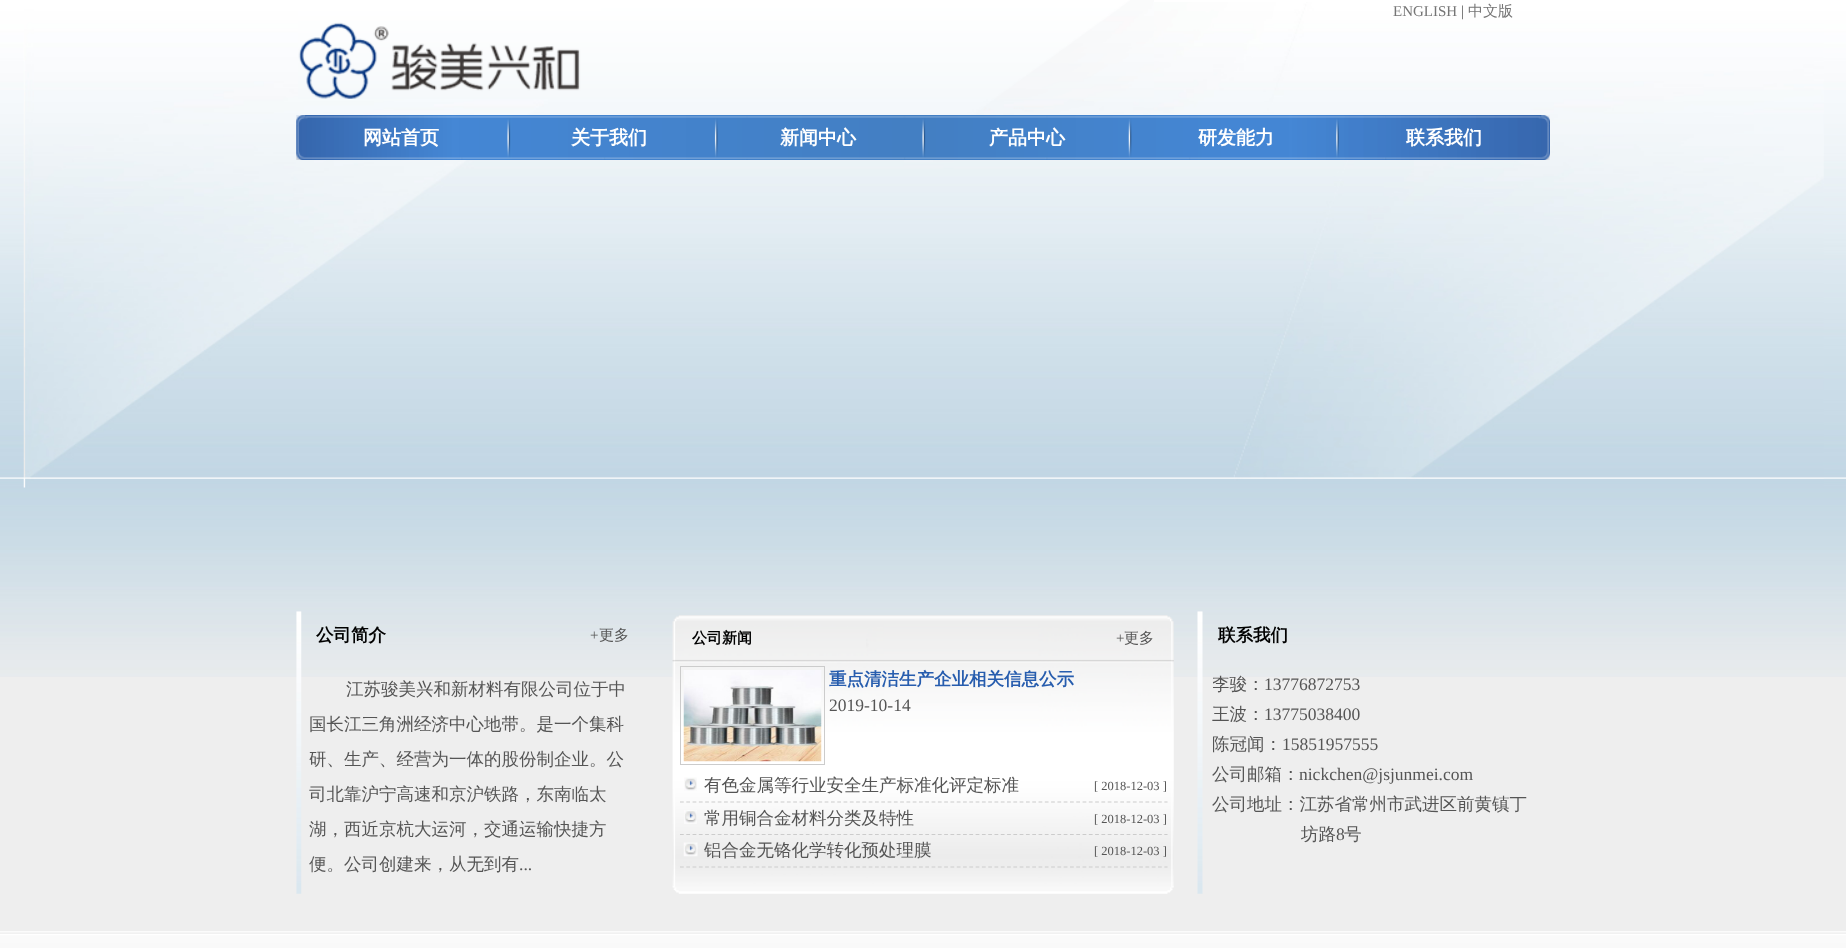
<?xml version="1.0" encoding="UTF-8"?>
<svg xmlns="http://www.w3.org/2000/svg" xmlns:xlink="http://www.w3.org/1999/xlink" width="1846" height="948">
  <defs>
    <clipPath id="clip1"><rect x="1213" y="658" width="323" height="192" /></clipPath>
  </defs>
  <rect width="100%" height="100%" fill="#eeeeee" />
  <image x="0" y="0" width="1846" height="677" xlink:href="image1.png" />
  <image x="23" y="2" width="1801" height="486" xlink:href="image2.png" />
  <image x="298" y="0" width="856" height="99" xlink:href="image3.png" />
  <image x="296" y="115" width="1254" height="45" xlink:href="image4.png" />
  <image x="296" y="611" width="6" height="283" xlink:href="image5.png" />
  <image x="672" y="615" width="502" height="279" xlink:href="image6.png" />
  <rect x="680.5" y="666.5" width="144" height="98" fill="none" stroke="#cccccc" />
  <image x="683" y="670" width="139" height="92" xlink:href="image7.png" />
  <image x="684" y="777" width="13" height="14" xlink:href="image8.png" />
  <path d="M 680 802 h 487.5" fill="none" stroke="#cccccc" stroke-width="1.2" stroke-dasharray="3.75 2.54" />
  <image x="684" y="810" width="13" height="14" xlink:href="image9.png" />
  <path d="M 680 834.5 h 487.5" fill="none" stroke="#cccccc" stroke-width="1.2" stroke-dasharray="3.75 2.54" />
  <image x="683" y="842" width="15" height="15" xlink:href="image10.png" />
  <path d="M 680 867 h 487.5" fill="none" stroke="#cccccc" stroke-width="1.2" stroke-dasharray="3.75 2.54" />
  <image x="1197" y="611" width="6" height="283" xlink:href="image11.png" />
  <image x="0" y="931" width="1846" height="17" xlink:href="image12.png" />
  <text x="1393" y="16" style="font-family: Liberation Serif; font-size: 15px; fill: #757575">ENGLISH</text>
  <text x="1461" y="16" style="font-family: Liberation Serif; font-size: 15px; fill: #555555">|</text>
  <text x="1468" y="16" style="font-family: WenQuanYi Zen Hei; font-size: 15px; font-weight: 500; fill: #757575">中文版</text>
  <text x="363" y="144" style="font-family: WenQuanYi Zen Hei; font-size: 19px; font-weight: bold; fill: #ffffff">网站首页</text>
  <text x="571" y="144" style="font-family: WenQuanYi Zen Hei; font-size: 19px; font-weight: bold; fill: #ffffff">关于我们</text>
  <text x="780" y="144" style="font-family: WenQuanYi Zen Hei; font-size: 19px; font-weight: bold; fill: #ffffff">新闻中心</text>
  <text x="989" y="144" style="font-family: WenQuanYi Zen Hei; font-size: 19px; font-weight: bold; fill: #ffffff">产品中心</text>
  <text x="1198" y="144" style="font-family: WenQuanYi Zen Hei; font-size: 19px; font-weight: bold; fill: #ffffff">研发能力</text>
  <text x="1406" y="144" style="font-family: WenQuanYi Zen Hei; font-size: 19px; font-weight: bold; fill: #ffffff">联系我们</text>
  <text x="316" y="641" style="font-family: WenQuanYi Zen Hei; font-size: 17.5px; font-weight: bold; fill: #000000">公司简介</text>
  <text x="590" y="640" style="font-family: Liberation Serif; font-size: 15px; fill: #555555">+</text>
  <text x="599" y="640" style="font-family: WenQuanYi Zen Hei; font-size: 15px; font-weight: 500; fill: #555555">更多</text>
  <text x="346" y="695" style="font-family: WenQuanYi Zen Hei; font-size: 17.5px; font-weight: 500; fill: #555555">江苏骏美兴和新材料有限公司位于中</text>
  <text x="309" y="730" style="font-family: WenQuanYi Zen Hei; font-size: 17.5px; font-weight: 500; fill: #555555">国长江三角洲经济中心地带。是一个集科</text>
  <text x="309" y="765" style="font-family: WenQuanYi Zen Hei; font-size: 17.5px; font-weight: 500; fill: #555555">研、生产、经营为一体的股份制企业。公</text>
  <text x="309" y="800" style="font-family: WenQuanYi Zen Hei; font-size: 17.5px; font-weight: 500; fill: #555555">司北靠沪宁高速和京沪铁路，东南临太</text>
  <text x="309" y="835" style="font-family: WenQuanYi Zen Hei; font-size: 17.5px; font-weight: 500; fill: #555555">湖，西近京杭大运河，交通运输快捷方</text>
  <text x="309" y="870" style="font-family: WenQuanYi Zen Hei; font-size: 17.5px; font-weight: 500; fill: #555555">便。公司创建来，从无到有</text>
  <text x="519" y="870" style="font-family: Liberation Serif; font-size: 17.5px; fill: #555555">...</text>
  <text x="692" y="643" style="font-family: WenQuanYi Zen Hei; font-size: 15px; font-weight: bold; fill: #000000">公司新闻</text>
  <text x="1116" y="643" style="font-family: Liberation Serif; font-size: 15px; fill: #555555">+</text>
  <text x="1124" y="643" style="font-family: WenQuanYi Zen Hei; font-size: 15px; font-weight: 500; fill: #555555">更多</text>
  <text x="829" y="685" style="font-family: WenQuanYi Zen Hei; font-size: 17.5px; font-weight: bold; fill: #275dae">重点清洁生产企业相关信息公示</text>
  <text x="829" y="711" style="font-family: Liberation Serif; font-size: 17.5px; fill: #555555">2019-10-14</text>
  <text x="704" y="791" style="font-family: WenQuanYi Zen Hei; font-size: 17.5px; font-weight: 500; fill: #555555">有色金属等行业安全生产标准化评定标准</text>
  <text x="1094" y="790" style="font-family: Liberation Serif; font-size: 12.5px; fill: #555555">[ 2018-12-03 ]</text>
  <text x="704" y="824" style="font-family: WenQuanYi Zen Hei; font-size: 17.5px; font-weight: 500; fill: #555555">常用铜合金材料分类及特性</text>
  <text x="1094" y="823" style="font-family: Liberation Serif; font-size: 12.5px; fill: #555555">[ 2018-12-03 ]</text>
  <text x="704" y="856" style="font-family: WenQuanYi Zen Hei; font-size: 17.5px; font-weight: 500; fill: #555555">铝合金无铬化学转化预处理膜</text>
  <text x="1094" y="855" style="font-family: Liberation Serif; font-size: 12.5px; fill: #555555">[ 2018-12-03 ]</text>
  <text x="1218" y="641" style="font-family: WenQuanYi Zen Hei; font-size: 17.5px; font-weight: bold; fill: #000000">联系我们</text>
  <g clip-path="url(#clip1)">
    <text x="1212" y="690" style="font-family: WenQuanYi Zen Hei; font-size: 17.5px; font-weight: 500; fill: #555555">李骏：</text>
  </g>
  <text x="1264" y="690" style="font-family: Liberation Serif; font-size: 17.5px; fill: #555555">13776872753</text>
  <text x="1212" y="720" style="font-family: WenQuanYi Zen Hei; font-size: 17.5px; font-weight: 500; fill: #555555">王波：</text>
  <text x="1264" y="720" style="font-family: Liberation Serif; font-size: 17.5px; fill: #555555">13775038400</text>
  <g clip-path="url(#clip1)">
    <text x="1212" y="750" style="font-family: WenQuanYi Zen Hei; font-size: 17.5px; font-weight: 500; fill: #555555">陈冠闻：</text>
  </g>
  <text x="1282" y="750" style="font-family: Liberation Serif; font-size: 17.5px; fill: #555555">15851957555</text>
  <text x="1212" y="780" style="font-family: WenQuanYi Zen Hei; font-size: 17.5px; font-weight: 500; fill: #555555">公司邮箱：</text>
  <text x="1299" y="780" style="font-family: Liberation Serif; font-size: 17.5px; fill: #555555">nickchen@jsjunmei.com</text>
  <text x="1212" y="810" style="font-family: WenQuanYi Zen Hei; font-size: 17.5px; font-weight: 500; fill: #555555">公司地址：江苏省常州市武进区前黄镇丁</text>
  <text x="1301" y="840" style="font-family: WenQuanYi Zen Hei; font-size: 17.5px; font-weight: 500; fill: #555555">坊路</text>
  <text x="1336" y="840" style="font-family: Liberation Serif; font-size: 17.5px; fill: #555555">8</text>
  <text x="1344" y="840" style="font-family: WenQuanYi Zen Hei; font-size: 17.5px; font-weight: 500; fill: #555555">号</text>
</svg>
